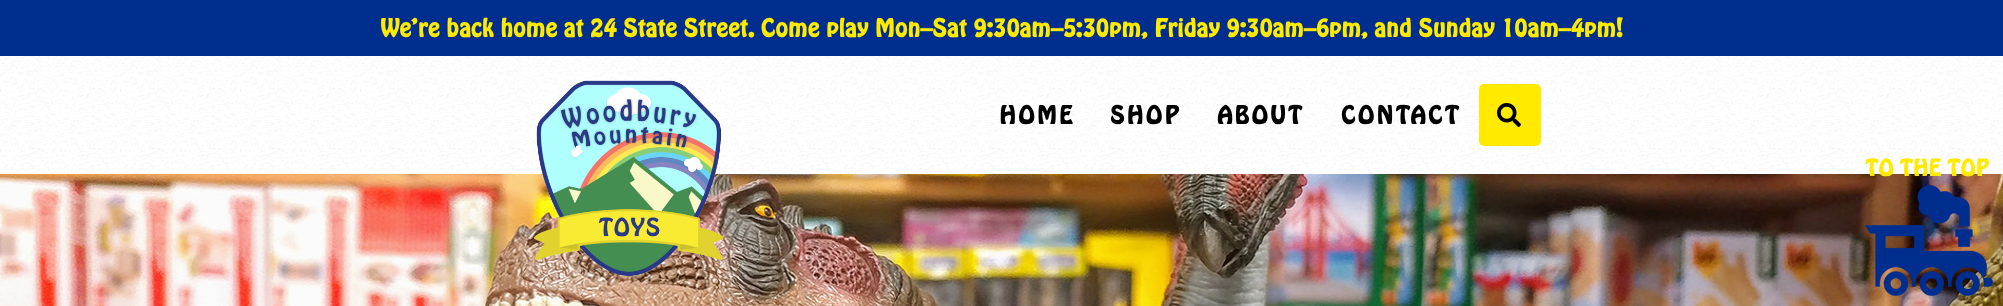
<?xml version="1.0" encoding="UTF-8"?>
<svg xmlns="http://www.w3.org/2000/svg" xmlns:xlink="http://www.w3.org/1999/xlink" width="2003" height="306">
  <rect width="100%" height="100%" fill="#ffffff" />
  <image x="0" y="56" width="2003" height="118" xlink:href="image1.png" />
  <rect width="2003" height="56" fill="#002e8f" />
  <image x="0" y="174" width="2003" height="132" xlink:href="image5.png" />
  <image x="534" y="80" width="190" height="196" xlink:href="image2.png" />
  <rect x="1479" y="84" width="62" height="62" rx="5" fill="#ffea00" />
  <image x="1497" y="103" width="24" height="24" xlink:href="image3.png" />
  <image x="1865" y="185" width="128" height="111" xlink:href="image4.png" />
  <text x="380" y="37" style="font-family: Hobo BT; font-size: 24px; font-weight: bold; fill: #ffea00">We’re back home at 24 State Street. Come play Mon–Sat 9:30am–5:30pm, Friday 9:30am–6pm, and Sunday 10am–4pm!</text>
  <text x="999" y="124" style="font-family: Hobo BT; font-size: 24px; font-weight: bold; letter-spacing: 2px; fill: #000000">HOME</text>
  <text x="1110" y="124" style="font-family: Hobo BT; font-size: 24px; font-weight: bold; letter-spacing: 2px; fill: #000000">SHOP</text>
  <text x="1217" y="124" style="font-family: Hobo BT; font-size: 24px; font-weight: bold; letter-spacing: 2px; fill: #000000">ABOUT</text>
  <text x="1341" y="124" style="font-family: Hobo BT; font-size: 24px; font-weight: bold; letter-spacing: 2px; fill: #000000">CONTACT</text>
  <text x="1865" y="176" style="font-family: Hobo BT; font-size: 22px; font-weight: bold; fill: #ffea00">TO THE TOP</text>
</svg>
